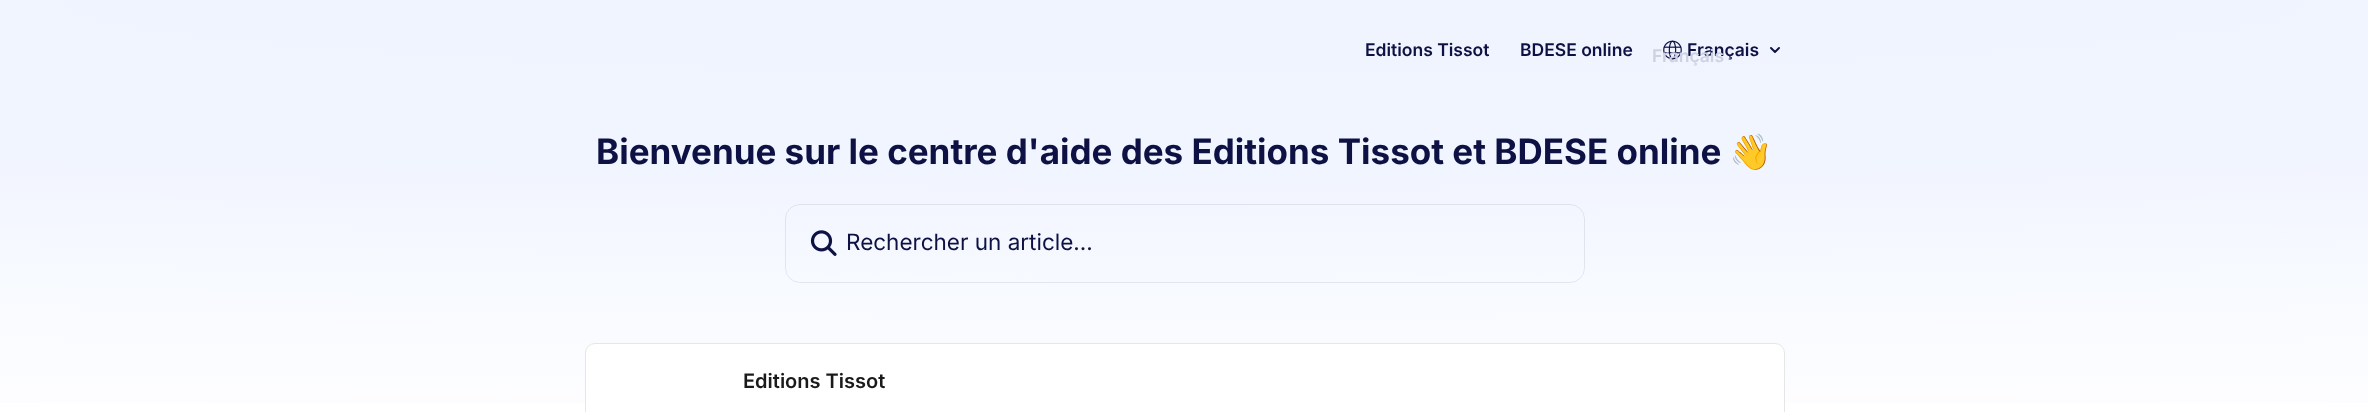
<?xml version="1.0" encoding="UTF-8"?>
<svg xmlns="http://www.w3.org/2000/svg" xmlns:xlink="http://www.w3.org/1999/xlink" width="2368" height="412">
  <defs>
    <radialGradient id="g1" gradientUnits="userSpaceOnUse" cx="0" cy="0" r="1" gradientTransform="matrix(7897 0 0 523 1184 0)"><stop offset="0" stop-color="#f0f4ff" /><stop offset="0.12" stop-color="#f0f4ff" /><stop offset="0.21" stop-color="#f1f5ff" /><stop offset="0.29" stop-color="#f1f5ff" /><stop offset="0.35" stop-color="#f2f5ff" /><stop offset="0.4" stop-color="#f3f6ff" /><stop offset="0.44" stop-color="#f4f7ff" /><stop offset="0.48" stop-color="#f5f8ff" /><stop offset="0.52" stop-color="#f6f9ff" /><stop offset="0.55" stop-color="#f7faff" /><stop offset="0.59" stop-color="#f9faff" /><stop offset="0.65" stop-color="#fafbff" /><stop offset="0.71" stop-color="#fbfcff" /><stop offset="0.79" stop-color="#fdfdff" /><stop offset="0.88" stop-color="#feffff" /><stop offset="1" stop-color="#ffffff" /></radialGradient>
  </defs>
  <rect width="100%" height="100%" fill="#ffffff" />
  <rect width="2368" height="403" fill="url(#g1)" />
  <image x="1663" y="40" width="19" height="20" xlink:href="image1.png" />
  <path d="M 1771 48 l 4 4 l 4 -4" fill="none" stroke="#0e1144" stroke-width="1.9" stroke-linecap="round" stroke-linejoin="round" />
  <rect x="785.5" y="204.5" width="799" height="78" rx="14.5" fill="none" stroke="#000000" stroke-opacity="0.08" />
  <image x="810" y="230" width="27" height="26" xlink:href="image2.png" />
  <rect x="585.5" y="343.5" width="1199" height="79" rx="9.5" fill="#ffffff" stroke="#e6e6e6" />
  <text x="1365" y="56" style="font-family: Inter; font-size: 17.5px; font-weight: 600; fill: #0e1144">Editions Tissot</text>
  <text x="1520" y="56" style="font-family: Inter; font-size: 17.5px; font-weight: 600; fill: #0e1144">BDESE online</text>
  <text x="1687" y="56" style="font-family: Inter; font-size: 17.5px; font-weight: 600; fill: #0e1144">Français</text>
  <text x="1652" y="62" style="font-family: Inter; font-size: 17.5px; font-weight: 600; fill: #cdd1e2">Français</text>
  <text x="596" y="164" style="font-family: Inter; font-size: 35px; font-weight: bold; fill: #0e1144">Bienvenue sur le centre d'aide des Editions Tissot et BDESE online</text>
  <text x="1729" y="164" style="font-family: Noto Color Emoji; font-size: 35px; font-weight: bold; fill: #0e1144">👋</text>
  <text x="846" y="250" style="font-family: Inter; font-size: 22.5px; fill: #0e1144">Rechercher un article...</text>
  <text x="743" y="388" style="font-family: Inter; font-size: 20px; font-weight: 600; fill: #1a1a1a">Editions Tissot</text>
</svg>
